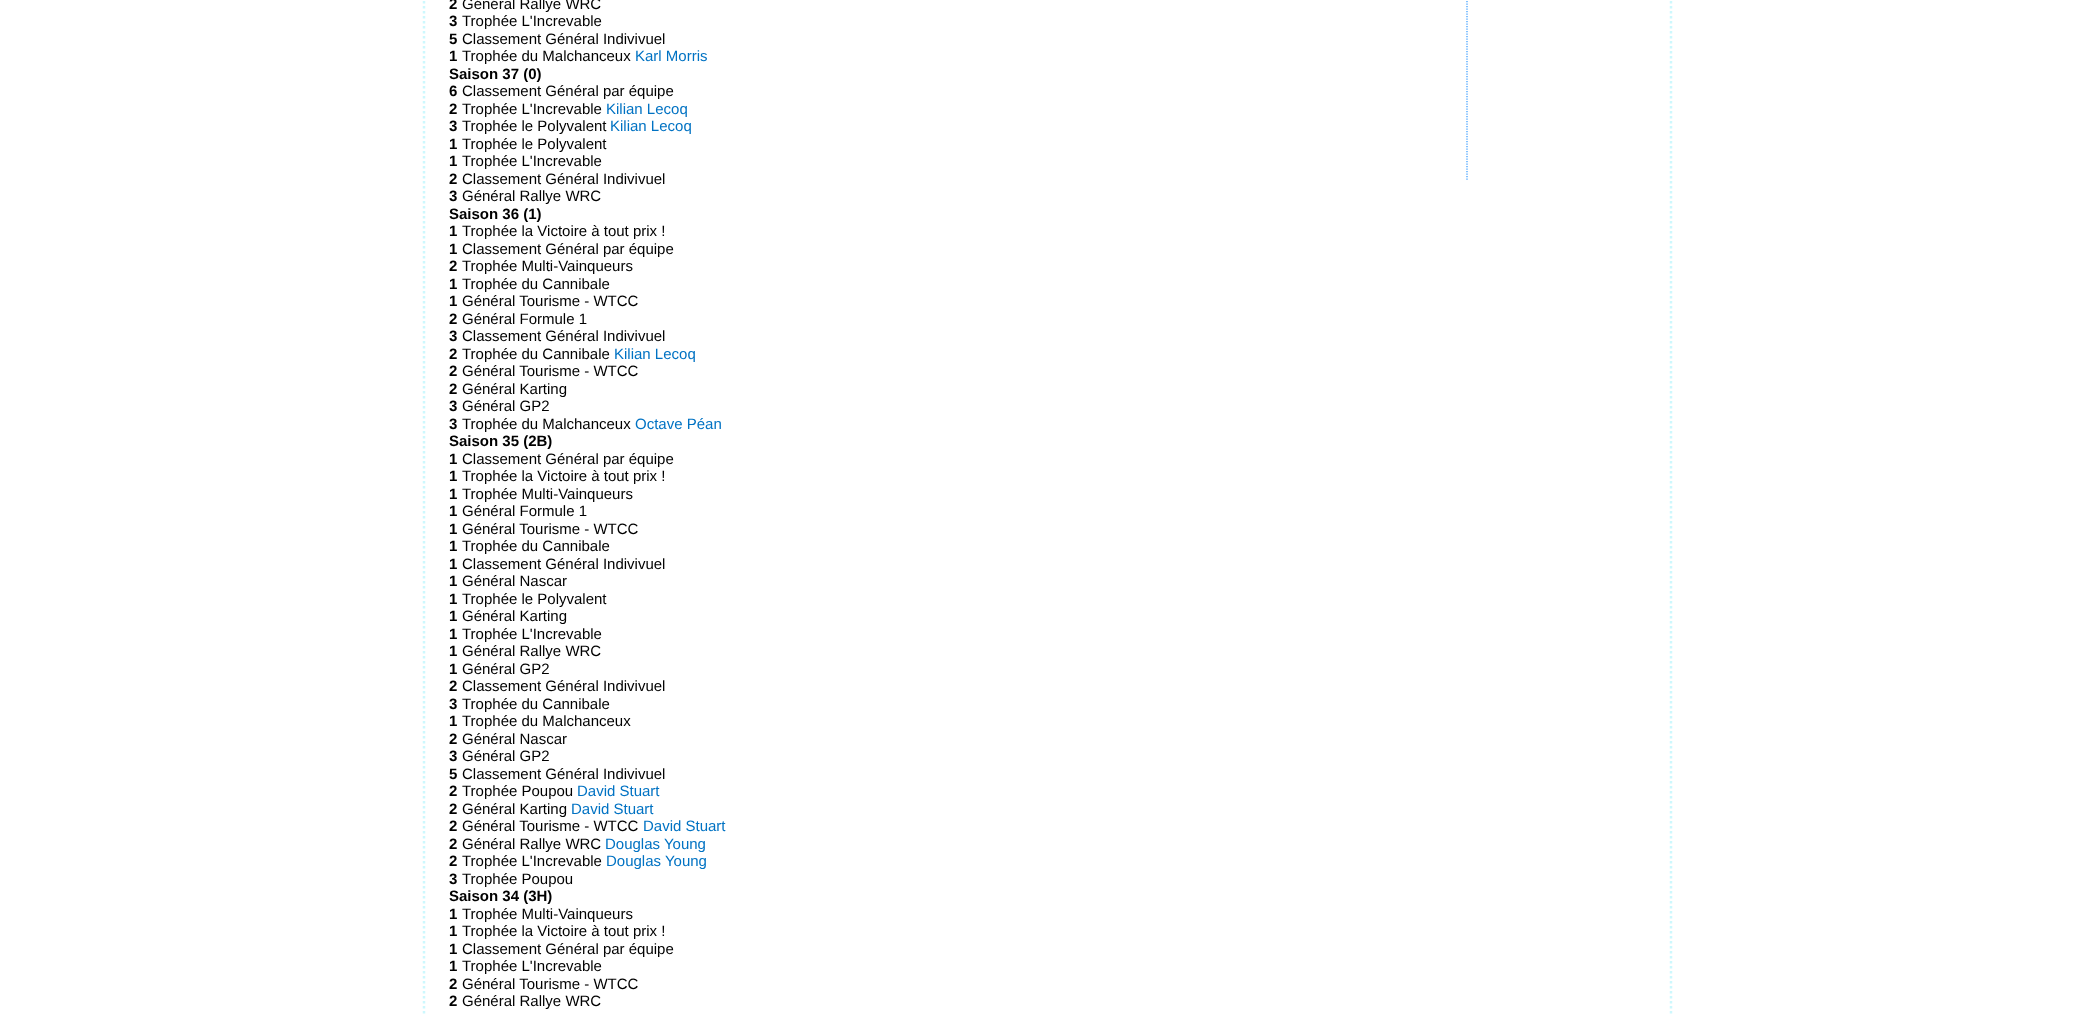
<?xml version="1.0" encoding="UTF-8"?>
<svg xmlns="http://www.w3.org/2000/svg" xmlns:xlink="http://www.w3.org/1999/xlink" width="2094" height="1015">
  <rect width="100%" height="100%" fill="#ffffff" />
  <path d="M 1671 -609 v 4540" fill="none" stroke="#cdf8fd" stroke-width="2.5" stroke-dasharray="2.5 2.5" />
  <path d="M 424 -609 v 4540" fill="none" stroke="#cdf8fd" stroke-width="2.5" stroke-dasharray="2.5 2.5" />
  <path d="M 1467 -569 v 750" fill="none" stroke="#3399ff" stroke-width="1.2" stroke-dasharray="1.25 1.25" />
  <text x="449" y="9" style="font-family: Liberation Sans; font-size: 15px; font-weight: bold; fill: #000000">2</text>
  <text x="462" y="9" style="font-family: Liberation Sans; font-size: 15px; fill: #000000">Général Rallye WRC</text>
  <text x="449" y="26" style="font-family: Liberation Sans; font-size: 15px; font-weight: bold; fill: #000000">3</text>
  <text x="462" y="26" style="font-family: Liberation Sans; font-size: 15px; fill: #000000">Trophée L'Increvable</text>
  <text x="449" y="44" style="font-family: Liberation Sans; font-size: 15px; font-weight: bold; fill: #000000">5</text>
  <text x="462" y="44" style="font-family: Liberation Sans; font-size: 15px; fill: #000000">Classement Général Indivivuel</text>
  <text x="449" y="61" style="font-family: Liberation Sans; font-size: 15px; font-weight: bold; fill: #000000">1</text>
  <text x="462" y="61" style="font-family: Liberation Sans; font-size: 15px; fill: #000000">Trophée du Malchanceux</text>
  <text x="635" y="61" style="font-family: Liberation Sans; font-size: 15px; fill: #0072c3">Karl Morris</text>
  <text x="449" y="79" style="font-family: Liberation Sans; font-size: 15px; font-weight: bold; fill: #000000">Saison 37 (0)</text>
  <text x="449" y="96" style="font-family: Liberation Sans; font-size: 15px; font-weight: bold; fill: #000000">6</text>
  <text x="462" y="96" style="font-family: Liberation Sans; font-size: 15px; fill: #000000">Classement Général par équipe</text>
  <text x="449" y="114" style="font-family: Liberation Sans; font-size: 15px; font-weight: bold; fill: #000000">2</text>
  <text x="462" y="114" style="font-family: Liberation Sans; font-size: 15px; fill: #000000">Trophée L'Increvable</text>
  <text x="606" y="114" style="font-family: Liberation Sans; font-size: 15px; fill: #0072c3">Kilian Lecoq</text>
  <text x="449" y="131" style="font-family: Liberation Sans; font-size: 15px; font-weight: bold; fill: #000000">3</text>
  <text x="462" y="131" style="font-family: Liberation Sans; font-size: 15px; fill: #000000">Trophée le Polyvalent</text>
  <text x="610" y="131" style="font-family: Liberation Sans; font-size: 15px; fill: #0072c3">Kilian Lecoq</text>
  <text x="449" y="149" style="font-family: Liberation Sans; font-size: 15px; font-weight: bold; fill: #000000">1</text>
  <text x="462" y="149" style="font-family: Liberation Sans; font-size: 15px; fill: #000000">Trophée le Polyvalent</text>
  <text x="449" y="166" style="font-family: Liberation Sans; font-size: 15px; font-weight: bold; fill: #000000">1</text>
  <text x="462" y="166" style="font-family: Liberation Sans; font-size: 15px; fill: #000000">Trophée L'Increvable</text>
  <text x="449" y="184" style="font-family: Liberation Sans; font-size: 15px; font-weight: bold; fill: #000000">2</text>
  <text x="462" y="184" style="font-family: Liberation Sans; font-size: 15px; fill: #000000">Classement Général Indivivuel</text>
  <text x="449" y="201" style="font-family: Liberation Sans; font-size: 15px; font-weight: bold; fill: #000000">3</text>
  <text x="462" y="201" style="font-family: Liberation Sans; font-size: 15px; fill: #000000">Général Rallye WRC</text>
  <text x="449" y="219" style="font-family: Liberation Sans; font-size: 15px; font-weight: bold; fill: #000000">Saison 36 (1)</text>
  <text x="449" y="236" style="font-family: Liberation Sans; font-size: 15px; font-weight: bold; fill: #000000">1</text>
  <text x="462" y="236" style="font-family: Liberation Sans; font-size: 15px; fill: #000000">Trophée la Victoire à tout prix !</text>
  <text x="449" y="254" style="font-family: Liberation Sans; font-size: 15px; font-weight: bold; fill: #000000">1</text>
  <text x="462" y="254" style="font-family: Liberation Sans; font-size: 15px; fill: #000000">Classement Général par équipe</text>
  <text x="449" y="271" style="font-family: Liberation Sans; font-size: 15px; font-weight: bold; fill: #000000">2</text>
  <text x="462" y="271" style="font-family: Liberation Sans; font-size: 15px; fill: #000000">Trophée Multi-Vainqueurs</text>
  <text x="449" y="289" style="font-family: Liberation Sans; font-size: 15px; font-weight: bold; fill: #000000">1</text>
  <text x="462" y="289" style="font-family: Liberation Sans; font-size: 15px; fill: #000000">Trophée du Cannibale</text>
  <text x="449" y="306" style="font-family: Liberation Sans; font-size: 15px; font-weight: bold; fill: #000000">1</text>
  <text x="462" y="306" style="font-family: Liberation Sans; font-size: 15px; fill: #000000">Général Tourisme - WTCC</text>
  <text x="449" y="324" style="font-family: Liberation Sans; font-size: 15px; font-weight: bold; fill: #000000">2</text>
  <text x="462" y="324" style="font-family: Liberation Sans; font-size: 15px; fill: #000000">Général Formule 1</text>
  <text x="449" y="341" style="font-family: Liberation Sans; font-size: 15px; font-weight: bold; fill: #000000">3</text>
  <text x="462" y="341" style="font-family: Liberation Sans; font-size: 15px; fill: #000000">Classement Général Indivivuel</text>
  <text x="449" y="359" style="font-family: Liberation Sans; font-size: 15px; font-weight: bold; fill: #000000">2</text>
  <text x="462" y="359" style="font-family: Liberation Sans; font-size: 15px; fill: #000000">Trophée du Cannibale</text>
  <text x="614" y="359" style="font-family: Liberation Sans; font-size: 15px; fill: #0072c3">Kilian Lecoq</text>
  <text x="449" y="376" style="font-family: Liberation Sans; font-size: 15px; font-weight: bold; fill: #000000">2</text>
  <text x="462" y="376" style="font-family: Liberation Sans; font-size: 15px; fill: #000000">Général Tourisme - WTCC</text>
  <text x="449" y="394" style="font-family: Liberation Sans; font-size: 15px; font-weight: bold; fill: #000000">2</text>
  <text x="462" y="394" style="font-family: Liberation Sans; font-size: 15px; fill: #000000">Général Karting</text>
  <text x="449" y="411" style="font-family: Liberation Sans; font-size: 15px; font-weight: bold; fill: #000000">3</text>
  <text x="462" y="411" style="font-family: Liberation Sans; font-size: 15px; fill: #000000">Général GP2</text>
  <text x="449" y="429" style="font-family: Liberation Sans; font-size: 15px; font-weight: bold; fill: #000000">3</text>
  <text x="462" y="429" style="font-family: Liberation Sans; font-size: 15px; fill: #000000">Trophée du Malchanceux</text>
  <text x="635" y="429" style="font-family: Liberation Sans; font-size: 15px; fill: #0072c3">Octave Péan</text>
  <text x="449" y="446" style="font-family: Liberation Sans; font-size: 15px; font-weight: bold; fill: #000000">Saison 35 (2B)</text>
  <text x="449" y="464" style="font-family: Liberation Sans; font-size: 15px; font-weight: bold; fill: #000000">1</text>
  <text x="462" y="464" style="font-family: Liberation Sans; font-size: 15px; fill: #000000">Classement Général par équipe</text>
  <text x="449" y="481" style="font-family: Liberation Sans; font-size: 15px; font-weight: bold; fill: #000000">1</text>
  <text x="462" y="481" style="font-family: Liberation Sans; font-size: 15px; fill: #000000">Trophée la Victoire à tout prix !</text>
  <text x="449" y="499" style="font-family: Liberation Sans; font-size: 15px; font-weight: bold; fill: #000000">1</text>
  <text x="462" y="499" style="font-family: Liberation Sans; font-size: 15px; fill: #000000">Trophée Multi-Vainqueurs</text>
  <text x="449" y="516" style="font-family: Liberation Sans; font-size: 15px; font-weight: bold; fill: #000000">1</text>
  <text x="462" y="516" style="font-family: Liberation Sans; font-size: 15px; fill: #000000">Général Formule 1</text>
  <text x="449" y="534" style="font-family: Liberation Sans; font-size: 15px; font-weight: bold; fill: #000000">1</text>
  <text x="462" y="534" style="font-family: Liberation Sans; font-size: 15px; fill: #000000">Général Tourisme - WTCC</text>
  <text x="449" y="551" style="font-family: Liberation Sans; font-size: 15px; font-weight: bold; fill: #000000">1</text>
  <text x="462" y="551" style="font-family: Liberation Sans; font-size: 15px; fill: #000000">Trophée du Cannibale</text>
  <text x="449" y="569" style="font-family: Liberation Sans; font-size: 15px; font-weight: bold; fill: #000000">1</text>
  <text x="462" y="569" style="font-family: Liberation Sans; font-size: 15px; fill: #000000">Classement Général Indivivuel</text>
  <text x="449" y="586" style="font-family: Liberation Sans; font-size: 15px; font-weight: bold; fill: #000000">1</text>
  <text x="462" y="586" style="font-family: Liberation Sans; font-size: 15px; fill: #000000">Général Nascar</text>
  <text x="449" y="604" style="font-family: Liberation Sans; font-size: 15px; font-weight: bold; fill: #000000">1</text>
  <text x="462" y="604" style="font-family: Liberation Sans; font-size: 15px; fill: #000000">Trophée le Polyvalent</text>
  <text x="449" y="621" style="font-family: Liberation Sans; font-size: 15px; font-weight: bold; fill: #000000">1</text>
  <text x="462" y="621" style="font-family: Liberation Sans; font-size: 15px; fill: #000000">Général Karting</text>
  <text x="449" y="639" style="font-family: Liberation Sans; font-size: 15px; font-weight: bold; fill: #000000">1</text>
  <text x="462" y="639" style="font-family: Liberation Sans; font-size: 15px; fill: #000000">Trophée L'Increvable</text>
  <text x="449" y="656" style="font-family: Liberation Sans; font-size: 15px; font-weight: bold; fill: #000000">1</text>
  <text x="462" y="656" style="font-family: Liberation Sans; font-size: 15px; fill: #000000">Général Rallye WRC</text>
  <text x="449" y="674" style="font-family: Liberation Sans; font-size: 15px; font-weight: bold; fill: #000000">1</text>
  <text x="462" y="674" style="font-family: Liberation Sans; font-size: 15px; fill: #000000">Général GP2</text>
  <text x="449" y="691" style="font-family: Liberation Sans; font-size: 15px; font-weight: bold; fill: #000000">2</text>
  <text x="462" y="691" style="font-family: Liberation Sans; font-size: 15px; fill: #000000">Classement Général Indivivuel</text>
  <text x="449" y="709" style="font-family: Liberation Sans; font-size: 15px; font-weight: bold; fill: #000000">3</text>
  <text x="462" y="709" style="font-family: Liberation Sans; font-size: 15px; fill: #000000">Trophée du Cannibale</text>
  <text x="449" y="726" style="font-family: Liberation Sans; font-size: 15px; font-weight: bold; fill: #000000">1</text>
  <text x="462" y="726" style="font-family: Liberation Sans; font-size: 15px; fill: #000000">Trophée du Malchanceux</text>
  <text x="449" y="744" style="font-family: Liberation Sans; font-size: 15px; font-weight: bold; fill: #000000">2</text>
  <text x="462" y="744" style="font-family: Liberation Sans; font-size: 15px; fill: #000000">Général Nascar</text>
  <text x="449" y="761" style="font-family: Liberation Sans; font-size: 15px; font-weight: bold; fill: #000000">3</text>
  <text x="462" y="761" style="font-family: Liberation Sans; font-size: 15px; fill: #000000">Général GP2</text>
  <text x="449" y="779" style="font-family: Liberation Sans; font-size: 15px; font-weight: bold; fill: #000000">5</text>
  <text x="462" y="779" style="font-family: Liberation Sans; font-size: 15px; fill: #000000">Classement Général Indivivuel</text>
  <text x="449" y="796" style="font-family: Liberation Sans; font-size: 15px; font-weight: bold; fill: #000000">2</text>
  <text x="462" y="796" style="font-family: Liberation Sans; font-size: 15px; fill: #000000">Trophée Poupou</text>
  <text x="577" y="796" style="font-family: Liberation Sans; font-size: 15px; fill: #0072c3">David Stuart</text>
  <text x="449" y="814" style="font-family: Liberation Sans; font-size: 15px; font-weight: bold; fill: #000000">2</text>
  <text x="462" y="814" style="font-family: Liberation Sans; font-size: 15px; fill: #000000">Général Karting</text>
  <text x="571" y="814" style="font-family: Liberation Sans; font-size: 15px; fill: #0072c3">David Stuart</text>
  <text x="449" y="831" style="font-family: Liberation Sans; font-size: 15px; font-weight: bold; fill: #000000">2</text>
  <text x="462" y="831" style="font-family: Liberation Sans; font-size: 15px; fill: #000000">Général Tourisme - WTCC</text>
  <text x="643" y="831" style="font-family: Liberation Sans; font-size: 15px; fill: #0072c3">David Stuart</text>
  <text x="449" y="849" style="font-family: Liberation Sans; font-size: 15px; font-weight: bold; fill: #000000">2</text>
  <text x="462" y="849" style="font-family: Liberation Sans; font-size: 15px; fill: #000000">Général Rallye WRC</text>
  <text x="605" y="849" style="font-family: Liberation Sans; font-size: 15px; fill: #0072c3">Douglas Young</text>
  <text x="449" y="866" style="font-family: Liberation Sans; font-size: 15px; font-weight: bold; fill: #000000">2</text>
  <text x="462" y="866" style="font-family: Liberation Sans; font-size: 15px; fill: #000000">Trophée L'Increvable</text>
  <text x="606" y="866" style="font-family: Liberation Sans; font-size: 15px; fill: #0072c3">Douglas Young</text>
  <text x="449" y="884" style="font-family: Liberation Sans; font-size: 15px; font-weight: bold; fill: #000000">3</text>
  <text x="462" y="884" style="font-family: Liberation Sans; font-size: 15px; fill: #000000">Trophée Poupou</text>
  <text x="449" y="901" style="font-family: Liberation Sans; font-size: 15px; font-weight: bold; fill: #000000">Saison 34 (3H)</text>
  <text x="449" y="919" style="font-family: Liberation Sans; font-size: 15px; font-weight: bold; fill: #000000">1</text>
  <text x="462" y="919" style="font-family: Liberation Sans; font-size: 15px; fill: #000000">Trophée Multi-Vainqueurs</text>
  <text x="449" y="936" style="font-family: Liberation Sans; font-size: 15px; font-weight: bold; fill: #000000">1</text>
  <text x="462" y="936" style="font-family: Liberation Sans; font-size: 15px; fill: #000000">Trophée la Victoire à tout prix !</text>
  <text x="449" y="954" style="font-family: Liberation Sans; font-size: 15px; font-weight: bold; fill: #000000">1</text>
  <text x="462" y="954" style="font-family: Liberation Sans; font-size: 15px; fill: #000000">Classement Général par équipe</text>
  <text x="449" y="971" style="font-family: Liberation Sans; font-size: 15px; font-weight: bold; fill: #000000">1</text>
  <text x="462" y="971" style="font-family: Liberation Sans; font-size: 15px; fill: #000000">Trophée L'Increvable</text>
  <text x="449" y="989" style="font-family: Liberation Sans; font-size: 15px; font-weight: bold; fill: #000000">2</text>
  <text x="462" y="989" style="font-family: Liberation Sans; font-size: 15px; fill: #000000">Général Tourisme - WTCC</text>
  <text x="449" y="1006" style="font-family: Liberation Sans; font-size: 15px; font-weight: bold; fill: #000000">2</text>
  <text x="462" y="1006" style="font-family: Liberation Sans; font-size: 15px; fill: #000000">Général Rallye WRC</text>
</svg>
